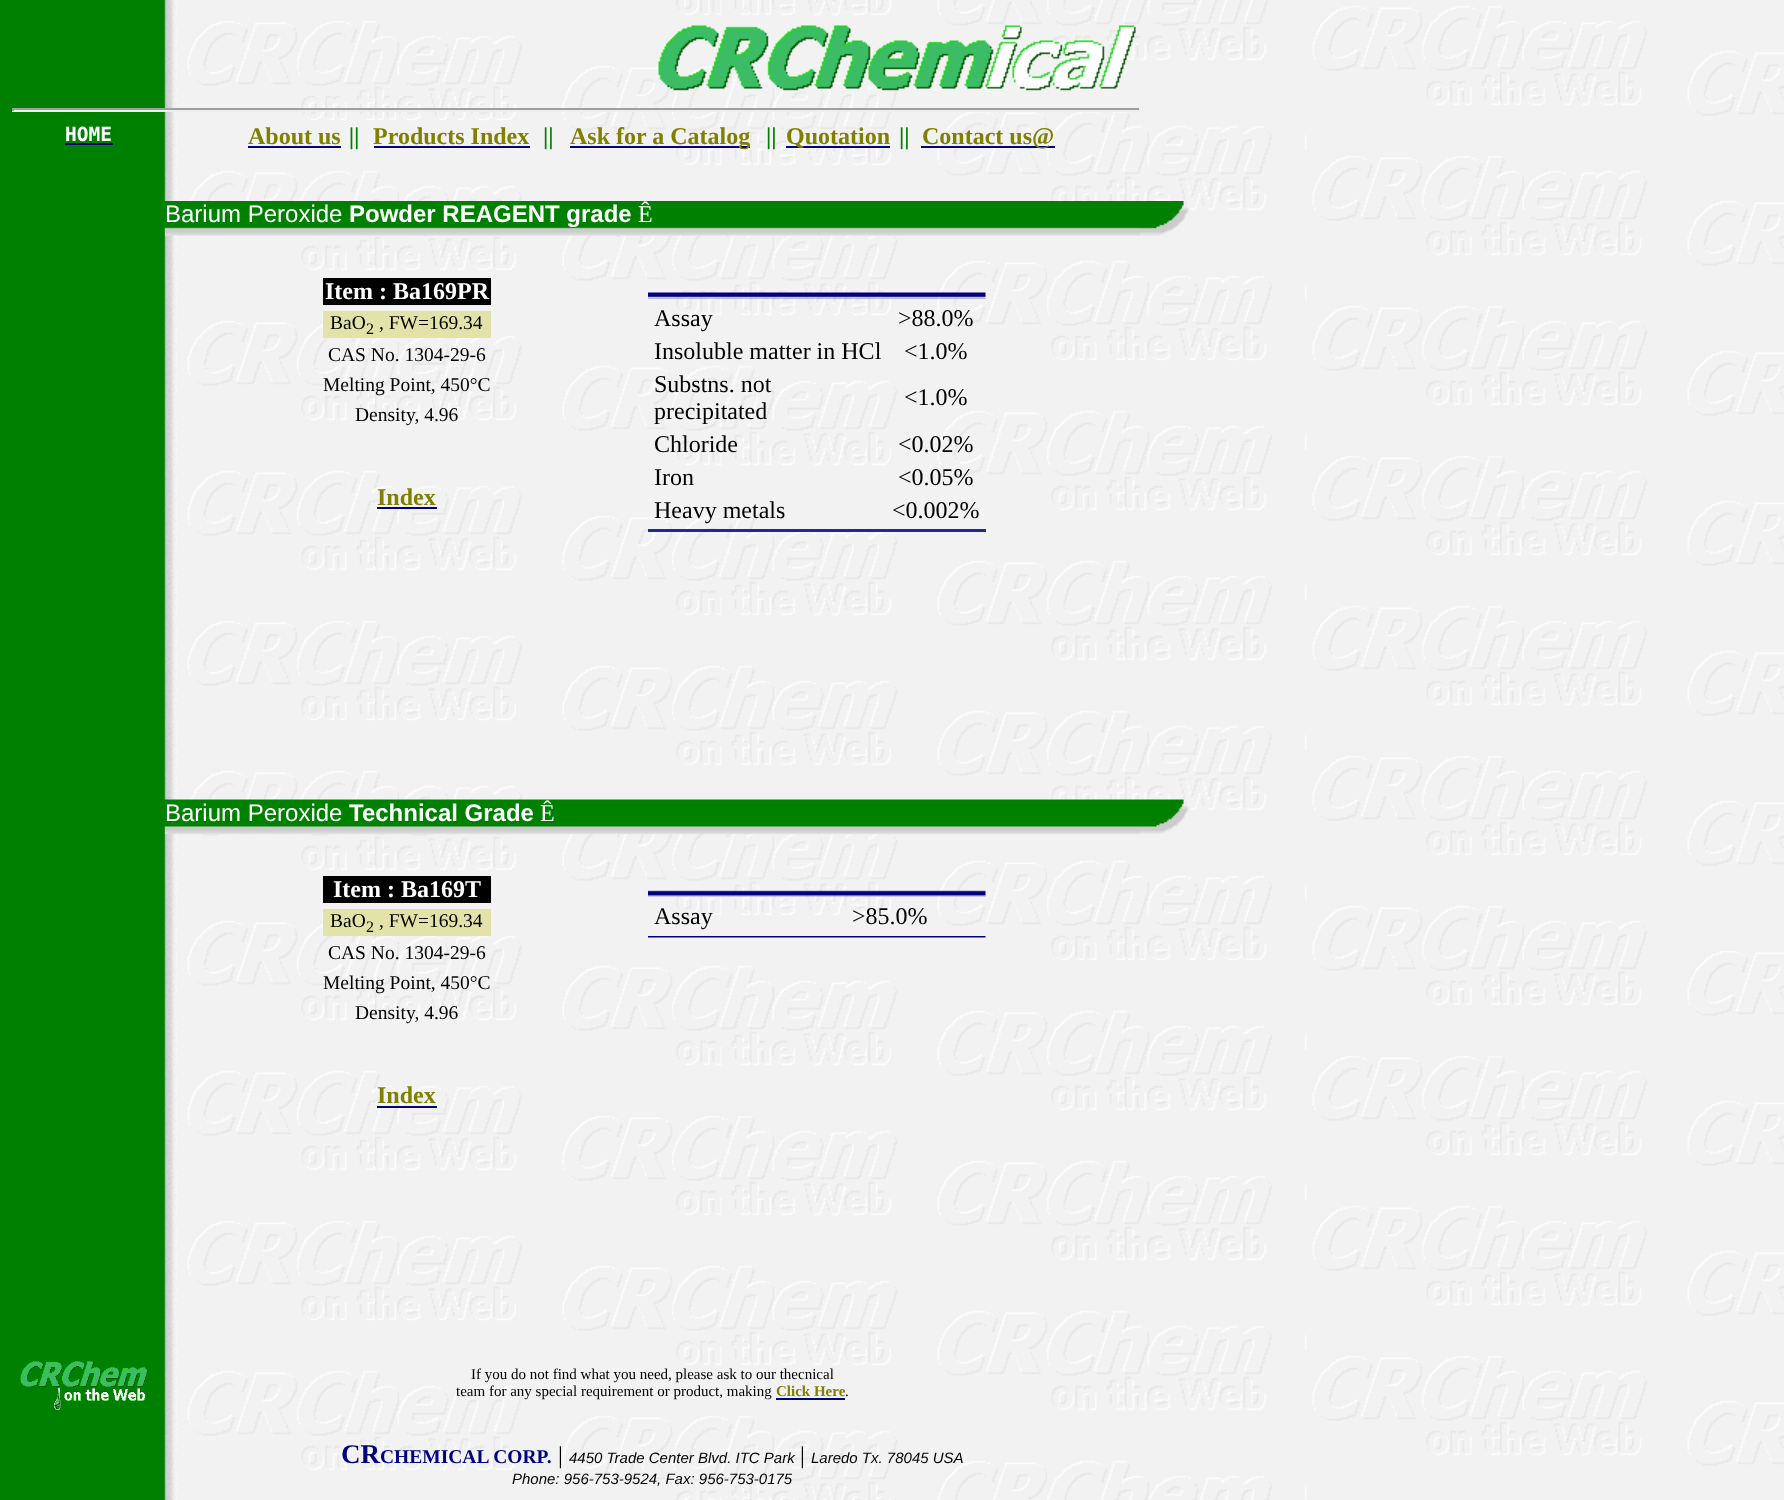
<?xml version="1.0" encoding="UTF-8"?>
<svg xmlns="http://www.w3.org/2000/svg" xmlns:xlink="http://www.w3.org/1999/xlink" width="1784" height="1500">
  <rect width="100%" height="100%" fill="#f2f2f2" />
  <image x="0" y="0" width="1784" height="1500" xlink:href="image1.png" />
  <image x="658" y="25" width="478" height="66" xlink:href="image2.png" />
  <rect x="12" y="108" width="1128" height="2" fill="#9f9f9f" />
  <rect x="1139" y="108" width="2" height="3" fill="#eeeeee" />
  <rect x="12" y="110" width="1128" height="2" fill="#eeeeee" />
  <rect x="12" y="108" width="2" height="3" fill="#9f9f9f" />
  <rect x="65" y="143" width="48" height="2" fill="#000080" />
  <rect x="248" y="146" width="93" height="2" fill="#000080" />
  <rect x="374" y="146" width="156" height="2" fill="#000080" />
  <rect x="570" y="146" width="180" height="2" fill="#000080" />
  <rect x="786" y="146" width="104" height="2" fill="#000080" />
  <rect x="921" y="146" width="134" height="2" fill="#000080" />
  <image x="164" y="201" width="1" height="28" xlink:href="image3.png" />
  <image x="165" y="201" width="975" height="35" xlink:href="image4.png" />
  <image x="1140" y="201" width="50" height="35" xlink:href="image5.png" />
  <rect x="323" y="278" width="168" height="27" fill="#000000" />
  <rect x="323" y="311" width="168" height="27" fill="#e2e2a9" />
  <rect x="377" y="507" width="60" height="2" fill="#000080" />
  <image x="648" y="292" width="338" height="7" xlink:href="image6.png" />
  <rect x="648" y="529" width="338" height="3" fill="#000080" fill-opacity="0.84" />
  <image x="164" y="799" width="1" height="28" xlink:href="image7.png" />
  <image x="165" y="799" width="975" height="36" xlink:href="image8.png" />
  <image x="1140" y="799" width="50" height="35" xlink:href="image9.png" />
  <rect x="323" y="876" width="168" height="27" fill="#000000" />
  <rect x="323" y="909" width="168" height="27" fill="#e2e2a9" />
  <rect x="377" y="1106" width="60" height="2" fill="#000080" />
  <image x="648" y="890" width="338" height="7" xlink:href="image10.png" />
  <image x="648" y="936" width="338" height="2" xlink:href="image11.png" />
  <image x="20" y="1361" width="128" height="49" xlink:href="image12.png" />
  <rect x="776" y="1398" width="69" height="2" fill="#000080" />
  <text x="65" y="141" style="font-family: DejaVu Sans Mono; font-size: 19.5px; font-weight: bold; fill: #ffffff">HOME</text>
  <text x="248" y="144" style="font-family: Liberation Serif; font-size: 24px; font-weight: bold; fill: #808000">About us</text>
  <text x="349" y="144" style="font-family: Liberation Serif; font-size: 24px; font-weight: bold; font-style: italic; fill: #008000">||</text>
  <text x="373" y="144" style="font-family: Liberation Serif; font-size: 24px; font-weight: bold; fill: #808000">Products Index</text>
  <text x="543" y="144" style="font-family: Liberation Serif; font-size: 24px; font-weight: bold; fill: #008000">||</text>
  <text x="570" y="144" style="font-family: Liberation Serif; font-size: 24px; font-weight: bold; fill: #808000">Ask for a Catalog</text>
  <text x="766" y="144" style="font-family: Liberation Serif; font-size: 24px; font-weight: bold; fill: #008000">||</text>
  <text x="786" y="144" style="font-family: Liberation Serif; font-size: 24px; font-weight: bold; fill: #808000">Quotation</text>
  <text x="899" y="144" style="font-family: Liberation Serif; font-size: 24px; font-weight: bold; fill: #008000">||</text>
  <text x="922" y="144" style="font-family: Liberation Serif; font-size: 24px; font-weight: bold; fill: #808000">Contact us@</text>
  <text x="165" y="222" style="font-family: Liberation Sans; font-size: 24px; fill: #ffffff">Barium Peroxide</text>
  <text x="349" y="222" style="font-family: Liberation Sans; font-size: 24px; font-weight: bold; fill: #ffffff">Powder REAGENT grade</text>
  <text x="638" y="222" style="font-family: Liberation Serif; font-size: 24px; fill: #ffffff">Ê</text>
  <text x="325" y="299" style="font-family: Liberation Serif; font-size: 24px; font-weight: bold; fill: #ffffff">Item : Ba169PR</text>
  <text x="330" y="329" style="font-family: Liberation Serif; font-size: 19.5px; fill: #000000">BaO</text>
  <text x="366" y="334" style="font-family: Liberation Serif; font-size: 16px; fill: #000000">2</text>
  <text x="379" y="329" style="font-family: Liberation Serif; font-size: 19.5px; fill: #000000">, FW=169.34</text>
  <text x="328" y="361" style="font-family: Liberation Serif; font-size: 19.5px; fill: #000000">CAS No. 1304-29-6</text>
  <text x="323" y="391" style="font-family: Liberation Serif; font-size: 19.5px; fill: #000000">Melting Point, 450°C</text>
  <text x="355" y="421" style="font-family: Liberation Serif; font-size: 19.5px; fill: #000000">Density, 4.96</text>
  <text x="377" y="505" style="font-family: Liberation Serif; font-size: 24px; font-weight: bold; fill: #808000">Index</text>
  <text x="654" y="326" style="font-family: Liberation Serif; font-size: 24px; fill: #000000">Assay</text>
  <text x="898" y="326" style="font-family: Liberation Serif; font-size: 24px; fill: #000000">&gt;88.0%</text>
  <text x="654" y="359" style="font-family: Liberation Serif; font-size: 24px; fill: #000000">Insoluble matter in HCl</text>
  <text x="904" y="359" style="font-family: Liberation Serif; font-size: 24px; fill: #000000">&lt;1.0%</text>
  <text x="654" y="392" style="font-family: Liberation Serif; font-size: 24px; fill: #000000">Substns. not</text>
  <text x="654" y="419" style="font-family: Liberation Serif; font-size: 24px; fill: #000000">precipitated</text>
  <text x="904" y="405" style="font-family: Liberation Serif; font-size: 24px; fill: #000000">&lt;1.0%</text>
  <text x="654" y="452" style="font-family: Liberation Serif; font-size: 24px; fill: #000000">Chloride</text>
  <text x="898" y="452" style="font-family: Liberation Serif; font-size: 24px; fill: #000000">&lt;0.02%</text>
  <text x="654" y="485" style="font-family: Liberation Serif; font-size: 24px; fill: #000000">Iron</text>
  <text x="898" y="485" style="font-family: Liberation Serif; font-size: 24px; fill: #000000">&lt;0.05%</text>
  <text x="654" y="518" style="font-family: Liberation Serif; font-size: 24px; fill: #000000">Heavy metals</text>
  <text x="892" y="518" style="font-family: Liberation Serif; font-size: 24px; fill: #000000">&lt;0.002%</text>
  <text x="165" y="821" style="font-family: Liberation Sans; font-size: 24px; fill: #ffffff">Barium Peroxide</text>
  <text x="349" y="821" style="font-family: Liberation Sans; font-size: 24px; font-weight: bold; fill: #ffffff">Technical Grade</text>
  <text x="540" y="821" style="font-family: Liberation Serif; font-size: 24px; fill: #ffffff">Ê</text>
  <text x="333" y="897" style="font-family: Liberation Serif; font-size: 24px; font-weight: bold; fill: #ffffff">Item : Ba169T</text>
  <text x="330" y="927" style="font-family: Liberation Serif; font-size: 19.5px; fill: #000000">BaO</text>
  <text x="366" y="932" style="font-family: Liberation Serif; font-size: 16px; fill: #000000">2</text>
  <text x="379" y="927" style="font-family: Liberation Serif; font-size: 19.5px; fill: #000000">, FW=169.34</text>
  <text x="328" y="959" style="font-family: Liberation Serif; font-size: 19.5px; fill: #000000">CAS No. 1304-29-6</text>
  <text x="323" y="989" style="font-family: Liberation Serif; font-size: 19.5px; fill: #000000">Melting Point, 450°C</text>
  <text x="355" y="1019" style="font-family: Liberation Serif; font-size: 19.5px; fill: #000000">Density, 4.96</text>
  <text x="377" y="1103" style="font-family: Liberation Serif; font-size: 24px; font-weight: bold; fill: #808000">Index</text>
  <text x="654" y="924" style="font-family: Liberation Serif; font-size: 24px; fill: #000000">Assay</text>
  <text x="852" y="924" style="font-family: Liberation Serif; font-size: 24px; fill: #000000">&gt;85.0%</text>
  <text x="471" y="1379" style="font-family: Liberation Serif; font-size: 15px; fill: #000000">If you do not find what you need, please ask to our thecnical</text>
  <text x="456" y="1396" style="font-family: Liberation Serif; font-size: 15px; fill: #000000">team for any special requirement or product, making</text>
  <text x="776" y="1396" style="font-family: Liberation Serif; font-size: 15px; font-weight: bold; fill: #808000">Click Here</text>
  <text x="845" y="1396" style="font-family: Liberation Serif; font-size: 15px; fill: #000000">.</text>
  <text x="341" y="1463" style="font-family: Liberation Serif; font-size: 27px; font-weight: bold; fill: #000080">CR</text>
  <text x="380" y="1463" style="font-family: Liberation Serif; font-size: 19.5px; font-weight: bold; fill: #000080">CHEMICAL CORP.</text>
  <text x="558" y="1463" style="font-family: Liberation Serif; font-size: 24px; fill: #000000">|</text>
  <text x="569" y="1463" style="font-family: Liberation Sans; font-size: 15px; font-style: italic; fill: #000000">4450 Trade Center Blvd. ITC Park</text>
  <text x="800" y="1463" style="font-family: Liberation Serif; font-size: 24px; fill: #000000">|</text>
  <text x="811" y="1463" style="font-family: Liberation Sans; font-size: 15px; font-style: italic; fill: #000000">Laredo Tx. 78045 USA</text>
  <text x="512" y="1484" style="font-family: Liberation Sans; font-size: 15px; font-style: italic; fill: #000000">Phone: 956-753-9524, Fax: 956-753-0175</text>
</svg>
